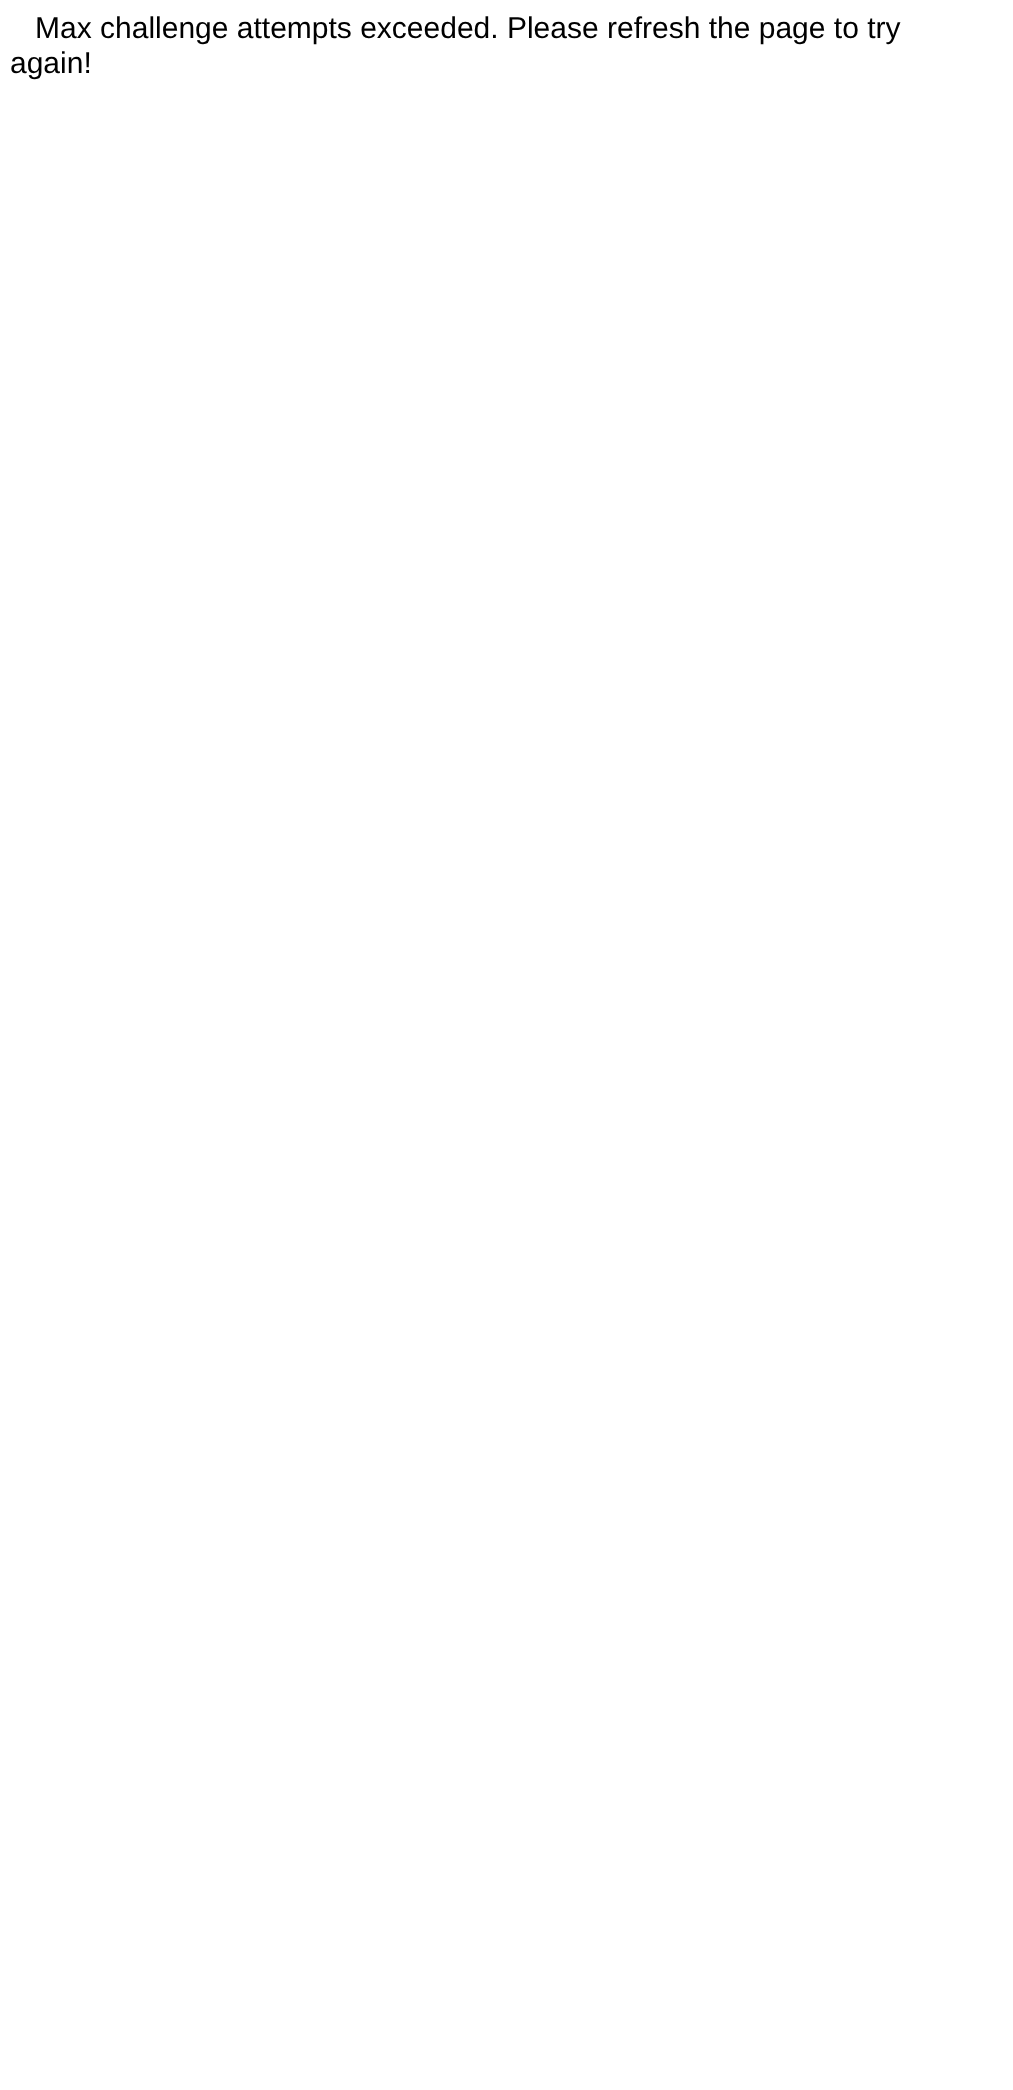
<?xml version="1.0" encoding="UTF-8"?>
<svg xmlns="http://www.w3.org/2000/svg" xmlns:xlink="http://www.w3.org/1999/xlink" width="1013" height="2090">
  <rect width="100%" height="100%" fill="#ffffff" />
  <text x="35" y="38" style="font-family: Liberation Sans; font-size: 30px; fill: #000000">Max challenge attempts exceeded. Please refresh the page to try</text>
  <text x="10" y="73" style="font-family: Liberation Sans; font-size: 30px; fill: #000000">again!</text>
</svg>
